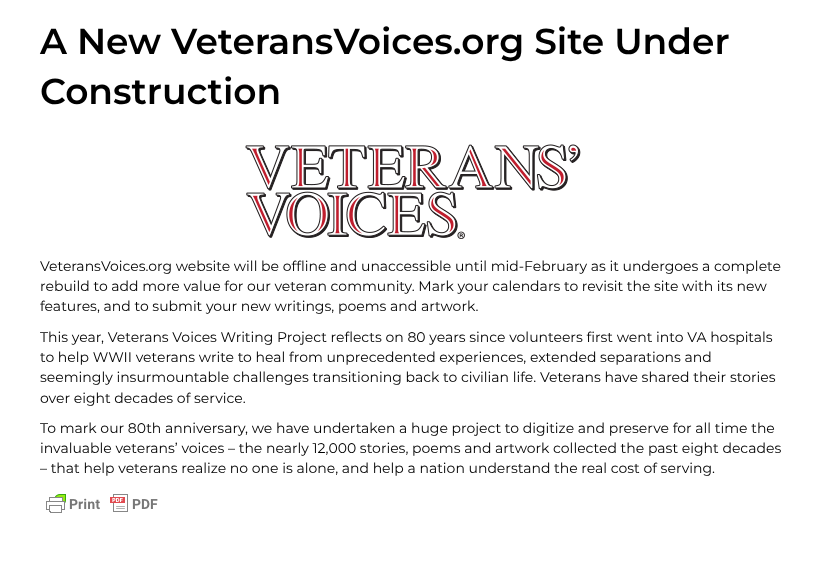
<?xml version="1.0" encoding="UTF-8"?>
<svg xmlns="http://www.w3.org/2000/svg" xmlns:xlink="http://www.w3.org/1999/xlink" width="825" height="579">
  <rect width="100%" height="100%" fill="#ffffff" />
  <image x="245" y="144" width="336" height="95" xlink:href="image1.png" />
  <image x="46" y="494" width="112" height="19" xlink:href="image2.png" />
  <text x="40" y="54" style="font-family: Montserrat; font-size: 36px; font-weight: 600; fill: #000000">A New VeteransVoices.org Site Under</text>
  <text x="40" y="104" style="font-family: Montserrat; font-size: 36px; font-weight: 600; fill: #000000">Construction</text>
  <text x="40" y="271" style="font-family: Montserrat; font-size: 14px; fill: #000000">VeteransVoices.org website will be offline and unaccessible until mid-February as it undergoes a complete</text>
  <text x="40" y="291" style="font-family: Montserrat; font-size: 14px; fill: #000000">rebuild to add more value for our veteran community. Mark your calendars to revisit the site with its new</text>
  <text x="40" y="311" style="font-family: Montserrat; font-size: 14px; fill: #000000">features, and to submit your new writings, poems and artwork.</text>
  <text x="40" y="342" style="font-family: Montserrat; font-size: 14px; fill: #000000">This year, Veterans Voices Writing Project reflects on 80 years since volunteers first went into VA hospitals</text>
  <text x="40" y="362" style="font-family: Montserrat; font-size: 14px; fill: #000000">to help WWII veterans write to heal from unprecedented experiences, extended separations and</text>
  <text x="40" y="382" style="font-family: Montserrat; font-size: 14px; fill: #000000">seemingly insurmountable challenges transitioning back to civilian life. Veterans have shared their stories</text>
  <text x="40" y="403" style="font-family: Montserrat; font-size: 14px; fill: #000000">over eight decades of service.</text>
  <text x="40" y="433" style="font-family: Montserrat; font-size: 14px; fill: #000000">To mark our 80th anniversary, we have undertaken a huge project to digitize and preserve for all time the</text>
  <text x="40" y="453" style="font-family: Montserrat; font-size: 14px; fill: #000000">invaluable veterans’ voices – the nearly 12,000 stories, poems and artwork collected the past eight decades</text>
  <text x="40" y="473" style="font-family: Montserrat; font-size: 14px; fill: #000000">– that help veterans realize no one is alone, and help a nation understand the real cost of serving.</text>
</svg>
